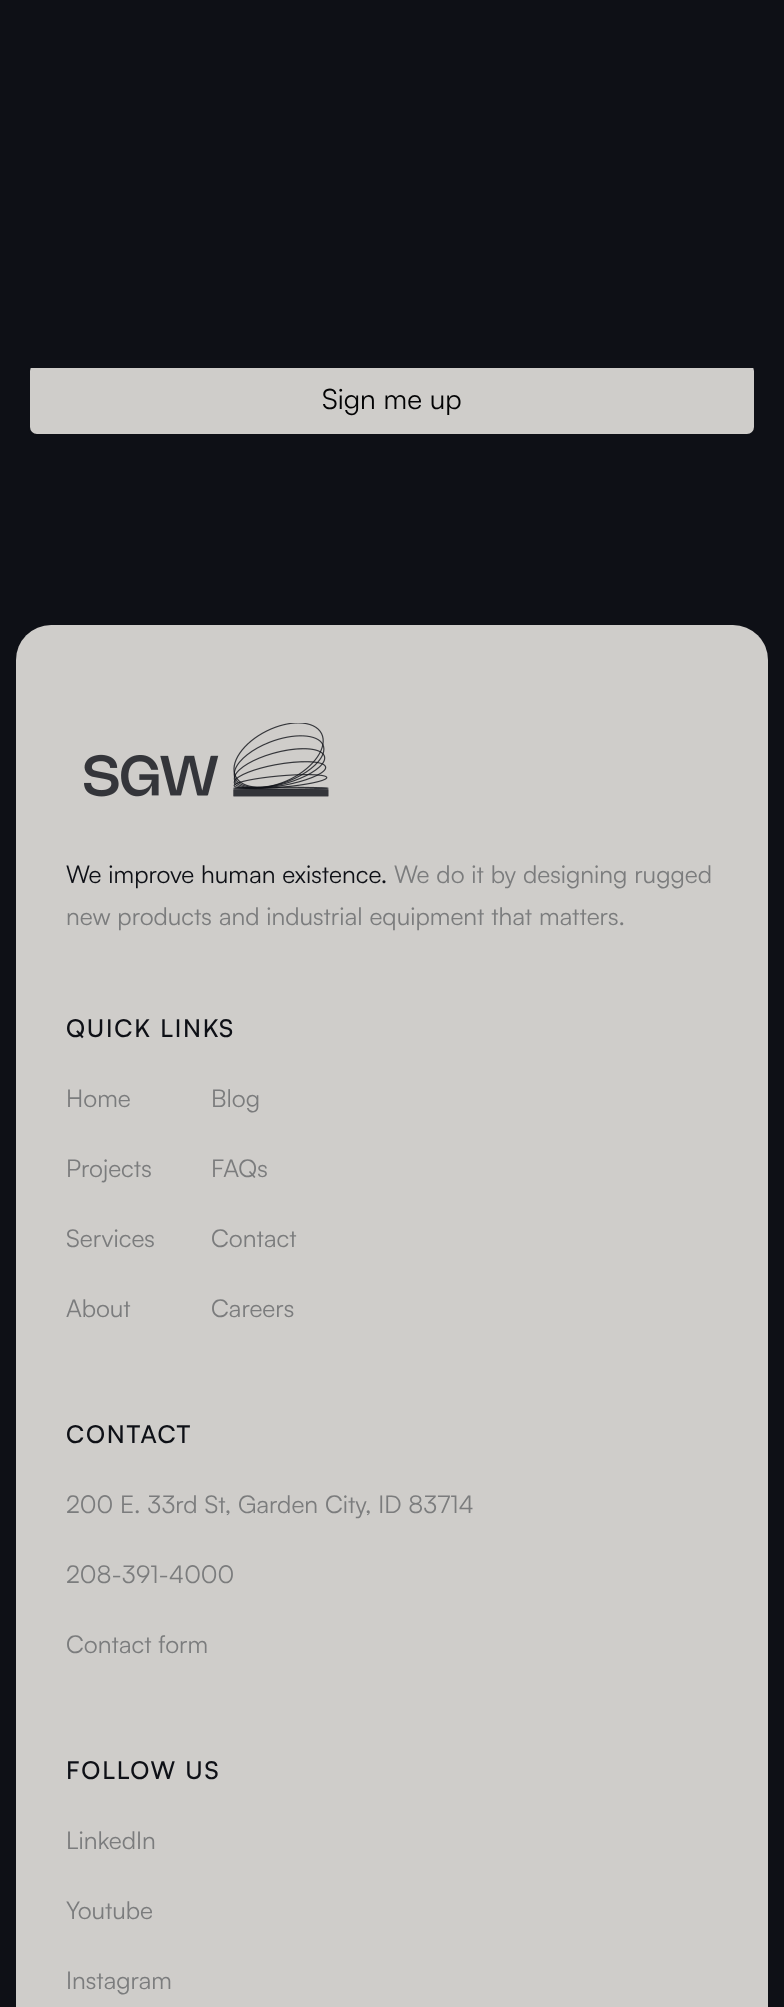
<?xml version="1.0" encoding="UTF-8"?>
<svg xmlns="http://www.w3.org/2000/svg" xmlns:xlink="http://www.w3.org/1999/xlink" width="784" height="2007">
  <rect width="100%" height="100%" fill="#0e1016" />
  <rect x="29" y="363" width="726" height="72" rx="8" fill="#cfcdca" stroke="#0e1016" stroke-width="2" />
  <rect x="28" y="362" width="728" height="6" fill="#0e1016" />
  <rect x="16" y="625" width="752" height="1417" rx="35" fill="#cfcdca" />
  <image x="84" y="723" width="245" height="74" xlink:href="image1.png" />
  <text x="322" y="409" style="font-family: Satoshi; font-size: 28px; fill: #030304">Sign me up</text>
  <text x="66" y="883" style="font-family: Satoshi; font-size: 24.5px; fill: #0e1016">We improve human existence.</text>
  <text x="394" y="883" style="font-family: Satoshi; font-size: 24.5px; fill: #7b7c7d">We do it by designing rugged</text>
  <text x="66" y="925" style="font-family: Satoshi; font-size: 24.5px; fill: #7b7c7d">new products and industrial equipment that matters.</text>
  <text x="66" y="1037" style="font-family: Satoshi; font-size: 24.5px; font-weight: 500; letter-spacing: 1.75px; fill: #0e1016">QUICK LINKS</text>
  <text x="66" y="1107" style="font-family: Satoshi; font-size: 24.5px; fill: #7b7c7d">Home</text>
  <text x="66" y="1177" style="font-family: Satoshi; font-size: 24.5px; fill: #7b7c7d">Projects</text>
  <text x="66" y="1247" style="font-family: Satoshi; font-size: 24.5px; fill: #7b7c7d">Services</text>
  <text x="66" y="1317" style="font-family: Satoshi; font-size: 24.5px; fill: #7b7c7d">About</text>
  <text x="211" y="1107" style="font-family: Satoshi; font-size: 24.5px; fill: #7b7c7d">Blog</text>
  <text x="211" y="1177" style="font-family: Satoshi; font-size: 24.5px; fill: #7b7c7d">FAQs</text>
  <text x="211" y="1247" style="font-family: Satoshi; font-size: 24.5px; fill: #7b7c7d">Contact</text>
  <text x="211" y="1317" style="font-family: Satoshi; font-size: 24.5px; fill: #7b7c7d">Careers</text>
  <text x="66" y="1443" style="font-family: Satoshi; font-size: 24.5px; font-weight: 500; letter-spacing: 1.75px; fill: #0e1016">CONTACT</text>
  <text x="66" y="1513" style="font-family: Satoshi; font-size: 24.5px; fill: #7b7c7d">200 E. 33rd St, Garden City, ID 83714</text>
  <text x="66" y="1583" style="font-family: Satoshi; font-size: 24.5px; fill: #7b7c7d">208-391-4000</text>
  <text x="66" y="1653" style="font-family: Satoshi; font-size: 24.5px; fill: #7b7c7d">Contact form</text>
  <text x="66" y="1779" style="font-family: Satoshi; font-size: 24.5px; font-weight: 500; letter-spacing: 1.75px; fill: #0e1016">FOLLOW US</text>
  <text x="66" y="1849" style="font-family: Satoshi; font-size: 24.5px; fill: #7b7c7d">LinkedIn</text>
  <text x="66" y="1919" style="font-family: Satoshi; font-size: 24.5px; fill: #7b7c7d">Youtube</text>
  <text x="66" y="1989" style="font-family: Satoshi; font-size: 24.5px; fill: #7b7c7d">Instagram</text>
</svg>
